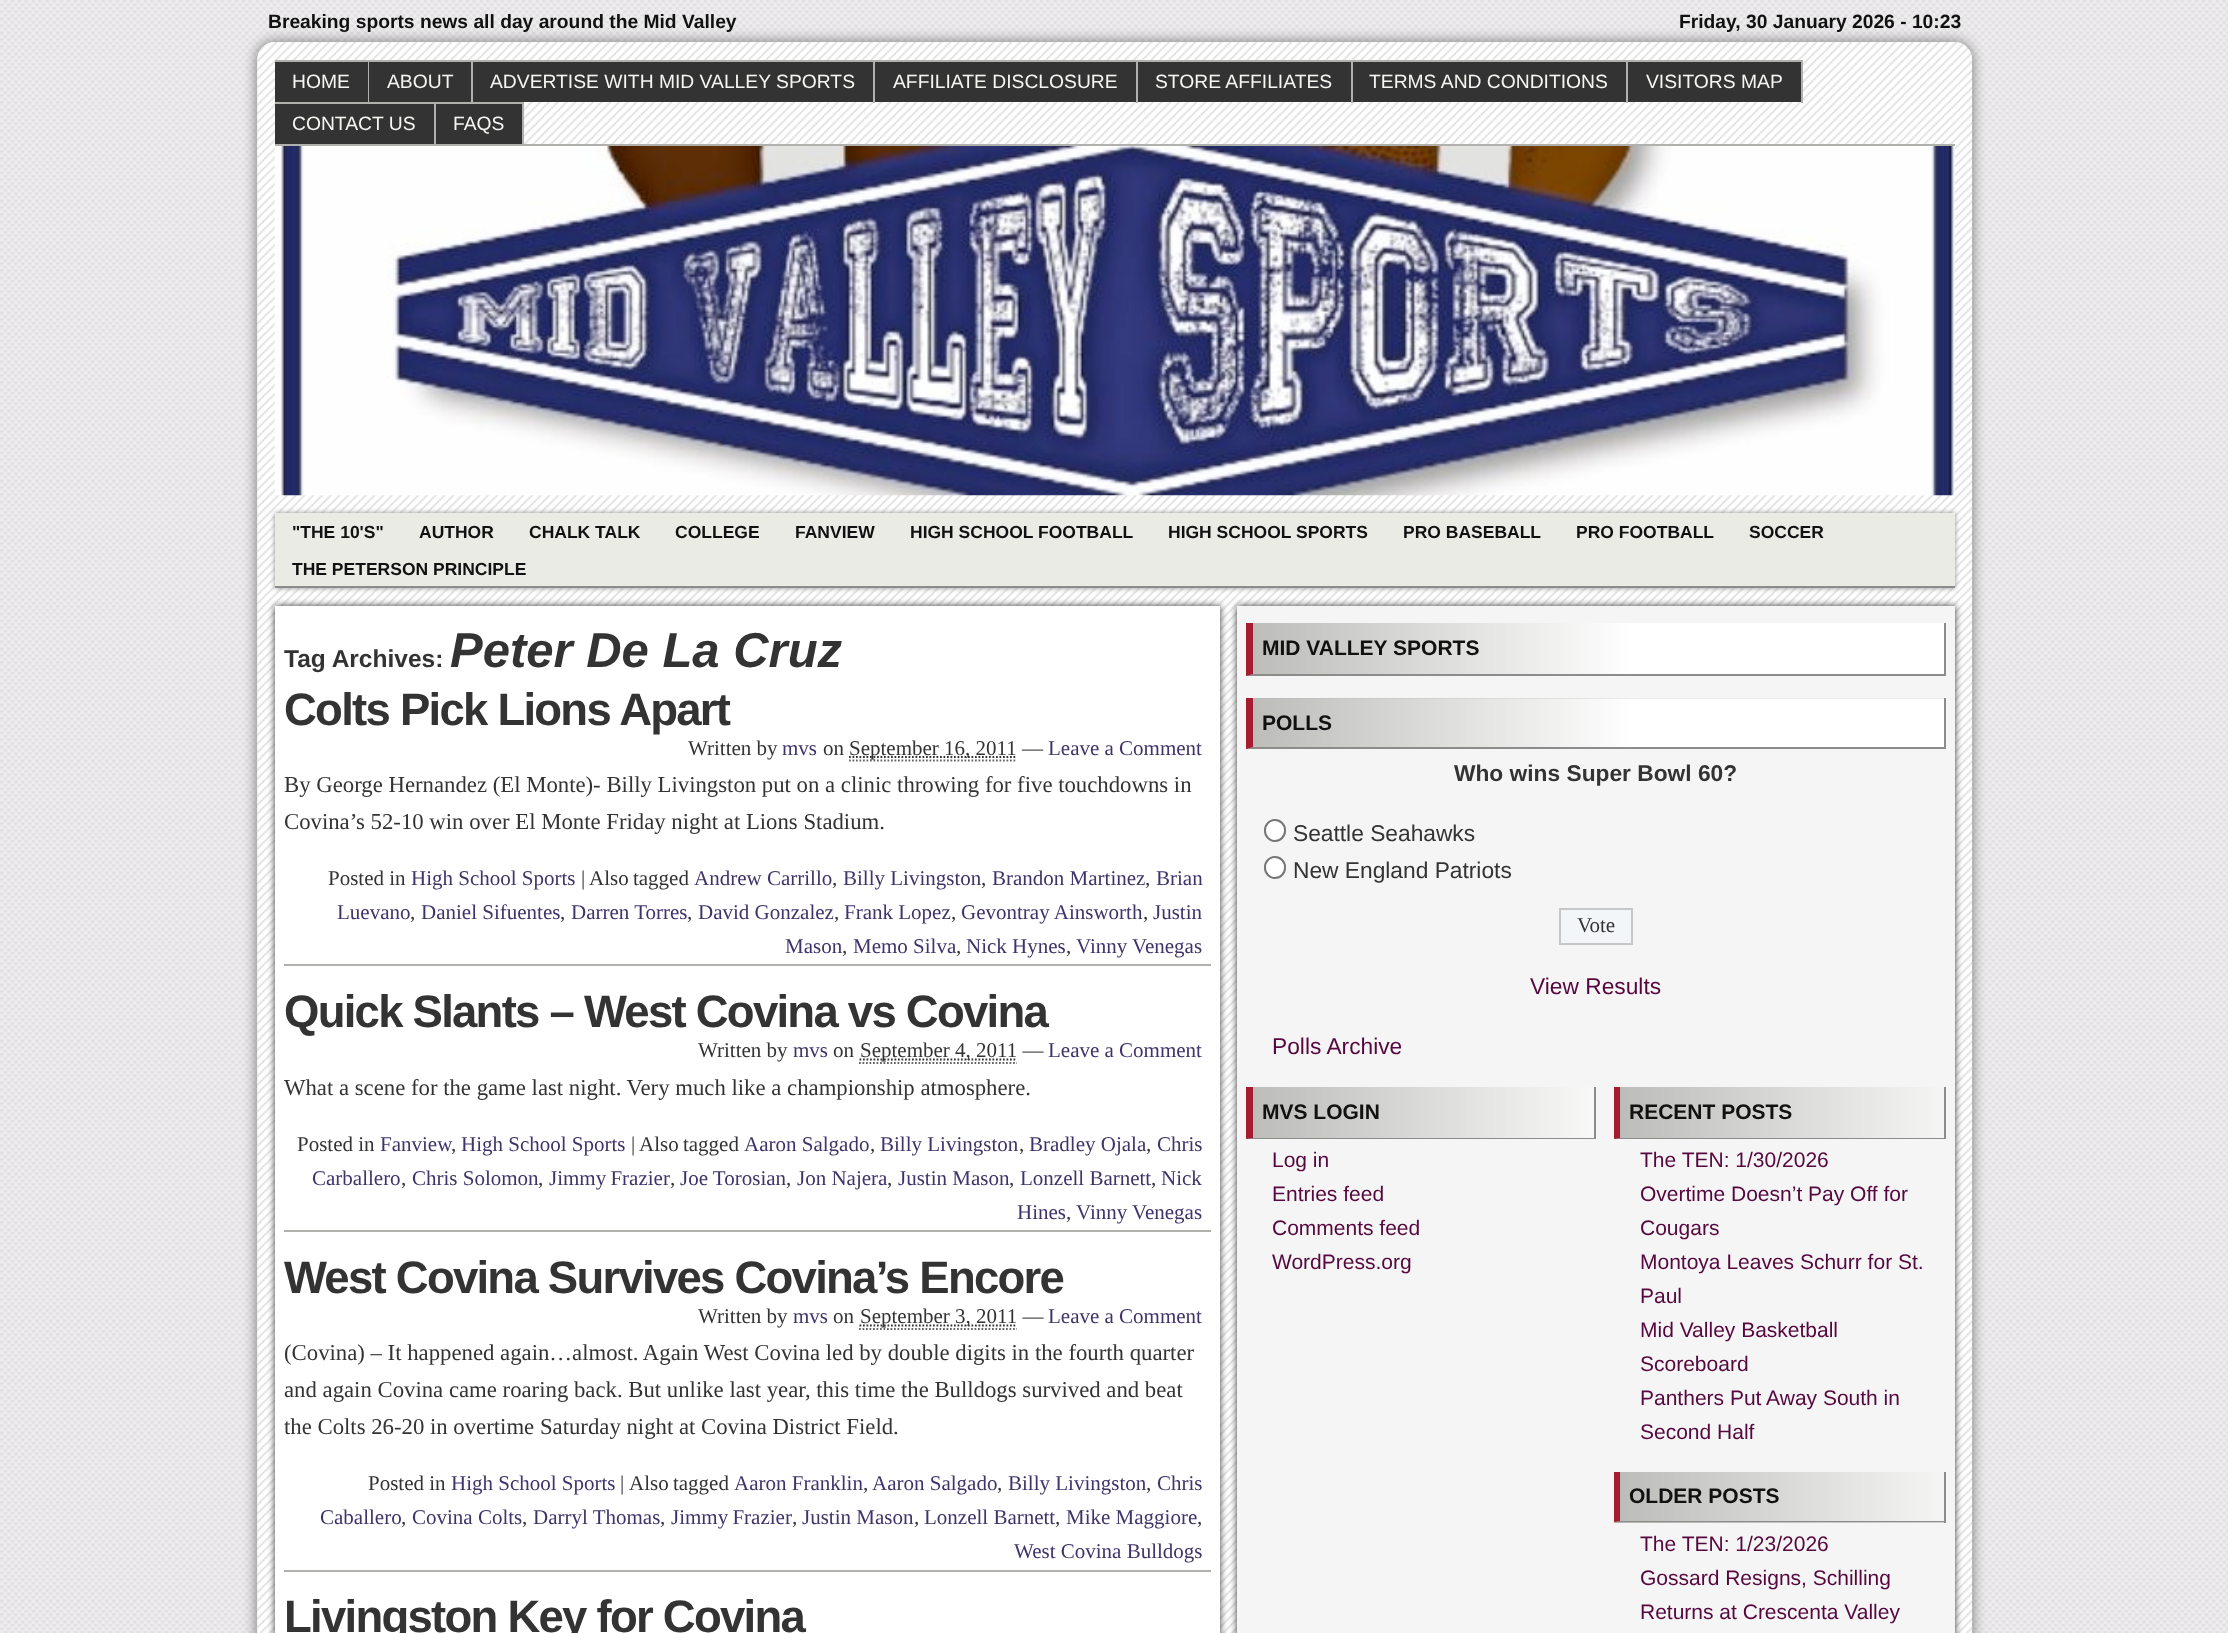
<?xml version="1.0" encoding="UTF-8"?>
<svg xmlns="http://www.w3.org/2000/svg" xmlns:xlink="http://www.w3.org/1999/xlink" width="2228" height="1633">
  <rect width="100%" height="100%" fill="#ffffff" />
  <image x="0" y="0" width="2228" height="1633" xlink:href="image1.png" />
  <rect x="257" y="42" width="1715" height="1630" rx="18" fill="#000000" fill-opacity="0.5" filter="blur(7px)" />
  <rect x="257" y="42" width="1715" height="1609" rx="18" fill="#ebebeb" />
  <image x="257" y="42" width="1716" height="1591" xlink:href="image2.png" />
  <image x="274" y="145" width="1681" height="351" xlink:href="image3.png" />
  <rect x="275" y="144" width="1680" height="2" fill="#b0b0ad" />
  <rect x="275" y="62" width="93" height="40" fill="#333333" />
  <rect x="275" y="60" width="1528" height="2" fill="#b0b0ad" />
  <rect x="368" y="60" width="1" height="43" fill="#b0b0ad" />
  <rect x="369" y="62" width="102" height="40" fill="#333333" />
  <rect x="471" y="60" width="2" height="43" fill="#b0b0ad" />
  <rect x="473" y="62" width="400" height="40" fill="#333333" />
  <rect x="873" y="60" width="2" height="43" fill="#b0b0ad" />
  <rect x="875" y="62" width="261" height="40" fill="#333333" />
  <rect x="1136" y="60" width="2" height="43" fill="#b0b0ad" />
  <rect x="1138" y="62" width="213" height="40" fill="#333333" />
  <rect x="1351" y="60" width="2" height="43" fill="#b0b0ad" />
  <rect x="1353" y="62" width="273" height="40" fill="#333333" />
  <rect x="1626" y="60" width="2" height="43" fill="#b0b0ad" />
  <rect x="1628" y="62" width="173" height="40" fill="#333333" />
  <rect x="1801" y="60" width="2" height="43" fill="#b0b0ad" />
  <rect x="275" y="104" width="159" height="40" fill="#333333" />
  <rect x="275" y="102" width="248" height="2" fill="#b0b0ad" />
  <rect x="434" y="102" width="2" height="43" fill="#b0b0ad" />
  <rect x="436" y="104" width="86" height="40" fill="#333333" />
  <rect x="522" y="102" width="2" height="43" fill="#b0b0ad" />
  <rect x="275" y="513" width="1680" height="75" fill="#8d8b8c" filter="blur(2.5px)" />
  <rect x="275" y="513" width="1680" height="73" fill="#ebebe5" />
  <rect x="275" y="586" width="1680" height="2" fill="#8d8b8c" />
  <rect x="275" y="606" width="945" height="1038" fill="#333333" filter="blur(3.5px)" />
  <rect x="275" y="606" width="945" height="1027" fill="#ffffff" />
  <path d="M 849 760.5 h 168" fill="none" stroke="#666666" stroke-width="1.8" stroke-dasharray="1.75 1.75" />
  <path d="M 849 757 h 168" fill="none" stroke="#333333" stroke-width="1.8" stroke-dasharray="1.75 1.75" />
  <rect x="284" y="964" width="927" height="2" fill="#b0b0ad" />
  <path d="M 859 1063 h 158" fill="none" stroke="#666666" stroke-width="1.8" stroke-dasharray="1.75 1.75" />
  <path d="M 859.5 1059.5 h 157.5" fill="none" stroke="#333333" stroke-width="1.8" stroke-dasharray="1.75 1.75" />
  <rect x="284" y="1230" width="927" height="2" fill="#b0b0ad" />
  <path d="M 859 1329 h 158" fill="none" stroke="#666666" stroke-width="1.8" stroke-dasharray="1.75 1.75" />
  <path d="M 859.5 1325.5 h 157.5" fill="none" stroke="#333333" stroke-width="1.8" stroke-dasharray="1.75 1.75" />
  <rect x="284" y="1570" width="927" height="2" fill="#b0b0ad" />
  <rect x="1237" y="606" width="718" height="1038" fill="#333333" filter="blur(3.5px)" />
  <rect x="1237" y="606" width="718" height="1027" fill="#f5f5f5" />
  <rect x="1246" y="623" width="388" height="53" fill="#b0b0ad" />
  <image x="1253" y="623" width="691" height="51" xlink:href="image4.png" />
  <rect x="1944" y="623" width="2" height="53" fill="#8d8b8c" />
  <path d="M 1946 676 h -700 l 7 -2 h 691 z" fill="#8d8b8c" />
  <path d="M 1246 676 v -53 h 7 v 51 z" fill="#a51c30" />
  <rect x="1246" y="698" width="698" height="51" fill="#b0b0ad" />
  <image x="1253" y="698" width="691" height="49" xlink:href="image5.png" />
  <rect x="1944" y="698" width="2" height="51" fill="#8d8b8c" />
  <path d="M 1946 749 h -700 l 7 -2 h 691 z" fill="#8d8b8c" />
  <path d="M 1246 749 v -51 h 7 v 49 z" fill="#a51c30" />
  <rect x="1265" y="820" width="20" height="21" rx="10" fill="#ffffff" stroke="#767676" stroke-width="2" />
  <rect x="1265" y="857" width="20" height="21" rx="10" fill="#ffffff" stroke="#767676" stroke-width="2" />
  <rect x="1560" y="909" width="72" height="35" fill="#f3f6f8" stroke="#c8c8c8" stroke-width="2" />
  <rect x="1246" y="1087" width="348" height="52" fill="#b0b0ad" />
  <image x="1253" y="1087" width="341" height="51" xlink:href="image6.png" />
  <rect x="1594" y="1087" width="2" height="52" fill="#8d8b8c" />
  <path d="M 1596 1139 h -350 l 7 -1 h 341 z" fill="#8d8b8c" />
  <path d="M 1246 1139 v -52 h 7 v 51 z" fill="#a51c30" />
  <rect x="1614" y="1087" width="330" height="52" fill="#b0b0ad" />
  <image x="1620" y="1087" width="324" height="51" xlink:href="image7.png" />
  <rect x="1944" y="1087" width="2" height="52" fill="#8d8b8c" />
  <path d="M 1946 1139 h -332 l 6 -1 h 324 z" fill="#8d8b8c" />
  <path d="M 1614 1139 v -52 h 6 v 51 z" fill="#a51c30" />
  <rect x="1614" y="1472" width="330" height="51" fill="#b0b0ad" />
  <image x="1620" y="1472" width="324" height="51" xlink:href="image8.png" />
  <rect x="1944" y="1472" width="2" height="51" fill="#8d8b8c" />
  <path d="M 1946 1522 h -332 l 6 -1 h 324 z" fill="#8d8b8c" />
  <path d="M 1614 1522 v -50 h 6 v 49 z" fill="#a51c30" />
  <text x="268" y="28" style="font-family: Liberation Sans; font-size: 19.25px; font-weight: bold; fill: #111111">Breaking sports news all day around the Mid Valley</text>
  <text x="1679" y="28" style="font-family: Liberation Sans; font-size: 19.25px; font-weight: bold; fill: #111111">Friday, 30 January 2026 - 10:23</text>
  <text x="292" y="88" style="font-family: Liberation Sans; font-size: 19.3px; fill: #f5f5f2">HOME</text>
  <text x="387" y="88" style="font-family: Liberation Sans; font-size: 19.3px; fill: #f5f5f2">ABOUT</text>
  <text x="490" y="88" style="font-family: Liberation Sans; font-size: 19.3px; fill: #f5f5f2">ADVERTISE WITH MID VALLEY SPORTS</text>
  <text x="893" y="88" style="font-family: Liberation Sans; font-size: 19.3px; fill: #f5f5f2">AFFILIATE DISCLOSURE</text>
  <text x="1155" y="88" style="font-family: Liberation Sans; font-size: 19.3px; fill: #f5f5f2">STORE AFFILIATES</text>
  <text x="1369" y="88" style="font-family: Liberation Sans; font-size: 19.3px; fill: #f5f5f2">TERMS AND CONDITIONS</text>
  <text x="1646" y="88" style="font-family: Liberation Sans; font-size: 19.3px; fill: #f5f5f2">VISITORS MAP</text>
  <text x="292" y="130" style="font-family: Liberation Sans; font-size: 19.3px; fill: #f5f5f2">CONTACT US</text>
  <text x="453" y="130" style="font-family: Liberation Sans; font-size: 19.3px; fill: #f5f5f2">FAQS</text>
  <text x="292" y="538" style="font-family: Liberation Sans; font-size: 17.5px; font-weight: bold; fill: #111111">"THE 10'S"</text>
  <text x="419" y="538" style="font-family: Liberation Sans; font-size: 17.5px; font-weight: bold; fill: #111111">AUTHOR</text>
  <text x="529" y="538" style="font-family: Liberation Sans; font-size: 17.5px; font-weight: bold; fill: #111111">CHALK TALK</text>
  <text x="675" y="538" style="font-family: Liberation Sans; font-size: 17.5px; font-weight: bold; fill: #111111">COLLEGE</text>
  <text x="795" y="538" style="font-family: Liberation Sans; font-size: 17.5px; font-weight: bold; fill: #111111">FANVIEW</text>
  <text x="910" y="538" style="font-family: Liberation Sans; font-size: 17.5px; font-weight: bold; fill: #111111">HIGH SCHOOL FOOTBALL</text>
  <text x="1168" y="538" style="font-family: Liberation Sans; font-size: 17.5px; font-weight: bold; fill: #111111">HIGH SCHOOL SPORTS</text>
  <text x="1403" y="538" style="font-family: Liberation Sans; font-size: 17.5px; font-weight: bold; fill: #111111">PRO BASEBALL</text>
  <text x="1576" y="538" style="font-family: Liberation Sans; font-size: 17.5px; font-weight: bold; fill: #111111">PRO FOOTBALL</text>
  <text x="1749" y="538" style="font-family: Liberation Sans; font-size: 17.5px; font-weight: bold; fill: #111111">SOCCER</text>
  <text x="292" y="575" style="font-family: Liberation Sans; font-size: 17.5px; font-weight: bold; fill: #111111">THE PETERSON PRINCIPLE</text>
  <text x="284" y="667" style="font-family: Liberation Sans; font-size: 24.5px; font-weight: bold; fill: #333333">Tag Archives:</text>
  <text x="450" y="667" style="font-family: Liberation Sans; font-size: 49px; font-weight: bold; font-style: italic; fill: #333333">Peter De La Cruz</text>
  <text x="284" y="725" style="font-family: Liberation Sans; font-size: 45.5px; font-weight: bold; letter-spacing: -1.75px; fill: #333333">Colts Pick Lions Apart</text>
  <text x="688" y="755" style="font-family: Liberation Serif; font-size: 21px; fill: #333333">Written by</text>
  <text x="782" y="755" style="font-family: Liberation Serif; font-size: 21px; fill: #403369">mvs</text>
  <text x="823" y="755" style="font-family: Liberation Serif; font-size: 21px; fill: #333333">on</text>
  <text x="849" y="755" style="font-family: Liberation Serif; font-size: 21px; fill: #333333">September 16, 2011 —</text>
  <text x="1048" y="755" style="font-family: Liberation Serif; font-size: 21px; fill: #403369">Leave a Comment</text>
  <text x="284" y="792" style="font-family: Liberation Serif; font-size: 22.75px; fill: #333333">By George Hernandez (El Monte)- Billy Livingston put on a clinic throwing for five touchdowns in</text>
  <text x="284" y="829" style="font-family: Liberation Serif; font-size: 22.75px; fill: #333333">Covina’s 52-10 win over El Monte Friday night at Lions Stadium.</text>
  <text x="328" y="885" style="font-family: Liberation Serif; font-size: 21px; fill: #333333">Posted in</text>
  <text x="411" y="885" style="font-family: Liberation Serif; font-size: 21px; fill: #403369">High School Sports</text>
  <text x="581" y="885" style="font-family: Liberation Serif; font-size: 21px; fill: #333333">|</text>
  <text x="589" y="885" word-spacing="-1" style="font-family: Liberation Serif; font-size: 21px; fill: #333333">Also tagged</text>
  <text x="694" y="885" style="font-family: Liberation Serif; font-size: 21px; fill: #403369">Andrew Carrillo</text>
  <text x="832" y="885" style="font-family: Liberation Serif; font-size: 21px; fill: #333333">,</text>
  <text x="843" y="885" style="font-family: Liberation Serif; font-size: 21px; fill: #403369">Billy Livingston</text>
  <text x="981" y="885" style="font-family: Liberation Serif; font-size: 21px; fill: #333333">,</text>
  <text x="992" y="885" style="font-family: Liberation Serif; font-size: 21px; fill: #403369">Brandon Martinez</text>
  <text x="1145" y="885" style="font-family: Liberation Serif; font-size: 21px; fill: #333333">,</text>
  <text x="1156" y="885" style="font-family: Liberation Serif; font-size: 21px; fill: #403369">Brian</text>
  <text x="337" y="919" style="font-family: Liberation Serif; font-size: 21px; fill: #403369">Luevano</text>
  <text x="410" y="919" style="font-family: Liberation Serif; font-size: 21px; fill: #333333">,</text>
  <text x="421" y="919" style="font-family: Liberation Serif; font-size: 21px; fill: #403369">Daniel Sifuentes</text>
  <text x="560" y="919" style="font-family: Liberation Serif; font-size: 21px; fill: #333333">,</text>
  <text x="571" y="919" style="font-family: Liberation Serif; font-size: 21px; fill: #403369">Darren Torres</text>
  <text x="687" y="919" style="font-family: Liberation Serif; font-size: 21px; fill: #333333">,</text>
  <text x="698" y="919" style="font-family: Liberation Serif; font-size: 21px; fill: #403369">David Gonzalez</text>
  <text x="834" y="919" style="font-family: Liberation Serif; font-size: 21px; fill: #333333">,</text>
  <text x="844" y="919" style="font-family: Liberation Serif; font-size: 21px; fill: #403369">Frank Lopez</text>
  <text x="951" y="919" style="font-family: Liberation Serif; font-size: 21px; fill: #333333">,</text>
  <text x="961" y="919" style="font-family: Liberation Serif; font-size: 21px; fill: #403369">Gevontray Ainsworth</text>
  <text x="1143" y="919" style="font-family: Liberation Serif; font-size: 21px; fill: #333333">,</text>
  <text x="1153" y="919" style="font-family: Liberation Serif; font-size: 21px; fill: #403369">Justin</text>
  <text x="785" y="953" style="font-family: Liberation Serif; font-size: 21px; fill: #403369">Mason</text>
  <text x="842" y="953" style="font-family: Liberation Serif; font-size: 21px; fill: #333333">,</text>
  <text x="853" y="953" style="font-family: Liberation Serif; font-size: 21px; fill: #403369">Memo Silva</text>
  <text x="956" y="953" style="font-family: Liberation Serif; font-size: 21px; fill: #333333">,</text>
  <text x="966" y="953" style="font-family: Liberation Serif; font-size: 21px; fill: #403369">Nick Hynes</text>
  <text x="1066" y="953" style="font-family: Liberation Serif; font-size: 21px; fill: #333333">,</text>
  <text x="1076" y="953" style="font-family: Liberation Serif; font-size: 21px; fill: #403369">Vinny Venegas</text>
  <text x="284" y="1027" style="font-family: Liberation Sans; font-size: 45.5px; font-weight: bold; letter-spacing: -1.75px; fill: #333333">Quick Slants – West Covina vs Covina</text>
  <text x="698" y="1057" style="font-family: Liberation Serif; font-size: 21px; fill: #333333">Written by</text>
  <text x="793" y="1057" style="font-family: Liberation Serif; font-size: 21px; fill: #403369">mvs</text>
  <text x="833" y="1057" style="font-family: Liberation Serif; font-size: 21px; fill: #333333">on</text>
  <text x="860" y="1057" style="font-family: Liberation Serif; font-size: 21px; fill: #333333">September 4, 2011 —</text>
  <text x="1048" y="1057" style="font-family: Liberation Serif; font-size: 21px; fill: #403369">Leave a Comment</text>
  <text x="284" y="1095" style="font-family: Liberation Serif; font-size: 22.75px; fill: #333333">What a scene for the game last night. Very much like a championship atmosphere.</text>
  <text x="297" y="1151" style="font-family: Liberation Serif; font-size: 21px; fill: #333333">Posted in</text>
  <text x="380" y="1151" style="font-family: Liberation Serif; font-size: 21px; fill: #403369">Fanview</text>
  <text x="461" y="1151" style="font-family: Liberation Serif; font-size: 21px; fill: #403369">High School Sports</text>
  <text x="631" y="1151" style="font-family: Liberation Serif; font-size: 21px; fill: #333333">|</text>
  <text x="639" y="1151" word-spacing="-1" style="font-family: Liberation Serif; font-size: 21px; fill: #333333">Also tagged</text>
  <text x="744" y="1151" style="font-family: Liberation Serif; font-size: 21px; fill: #403369">Aaron Salgado</text>
  <text x="880" y="1151" style="font-family: Liberation Serif; font-size: 21px; fill: #403369">Billy Livingston</text>
  <text x="1029" y="1151" style="font-family: Liberation Serif; font-size: 21px; fill: #403369">Bradley Ojala</text>
  <text x="1157" y="1151" style="font-family: Liberation Serif; font-size: 21px; fill: #403369">Chris</text>
  <text x="451" y="1151" style="font-family: Liberation Serif; font-size: 21px; fill: #333333">,</text>
  <text x="870" y="1151" style="font-family: Liberation Serif; font-size: 21px; fill: #333333">,</text>
  <text x="1019" y="1151" style="font-family: Liberation Serif; font-size: 21px; fill: #333333">,</text>
  <text x="1146" y="1151" style="font-family: Liberation Serif; font-size: 21px; fill: #333333">,</text>
  <text x="312" y="1185" style="font-family: Liberation Serif; font-size: 21px; fill: #403369">Carballero</text>
  <text x="401" y="1185" style="font-family: Liberation Serif; font-size: 21px; fill: #333333">,</text>
  <text x="412" y="1185" style="font-family: Liberation Serif; font-size: 21px; fill: #403369">Chris Solomon</text>
  <text x="538" y="1185" style="font-family: Liberation Serif; font-size: 21px; fill: #333333">,</text>
  <text x="549" y="1185" word-spacing="-1" style="font-family: Liberation Serif; font-size: 21px; fill: #403369">Jimmy Frazier</text>
  <text x="670" y="1185" style="font-family: Liberation Serif; font-size: 21px; fill: #333333">,</text>
  <text x="680" y="1185" style="font-family: Liberation Serif; font-size: 21px; fill: #403369">Joe Torosian</text>
  <text x="786" y="1185" style="font-family: Liberation Serif; font-size: 21px; fill: #333333">,</text>
  <text x="797" y="1185" style="font-family: Liberation Serif; font-size: 21px; fill: #403369">Jon Najera</text>
  <text x="887" y="1185" style="font-family: Liberation Serif; font-size: 21px; fill: #333333">,</text>
  <text x="898" y="1185" style="font-family: Liberation Serif; font-size: 21px; fill: #403369">Justin Mason</text>
  <text x="1009" y="1185" style="font-family: Liberation Serif; font-size: 21px; fill: #333333">,</text>
  <text x="1020" y="1185" style="font-family: Liberation Serif; font-size: 21px; fill: #403369">Lonzell Barnett</text>
  <text x="1151" y="1185" style="font-family: Liberation Serif; font-size: 21px; fill: #333333">,</text>
  <text x="1161" y="1185" style="font-family: Liberation Serif; font-size: 21px; fill: #403369">Nick</text>
  <text x="1017" y="1219" style="font-family: Liberation Serif; font-size: 21px; fill: #403369">Hines</text>
  <text x="1066" y="1219" style="font-family: Liberation Serif; font-size: 21px; fill: #333333">,</text>
  <text x="1076" y="1219" style="font-family: Liberation Serif; font-size: 21px; fill: #403369">Vinny Venegas</text>
  <text x="284" y="1293" style="font-family: Liberation Sans; font-size: 45.5px; font-weight: bold; letter-spacing: -1.75px; fill: #333333">West Covina Survives Covina’s Encore</text>
  <text x="698" y="1323" style="font-family: Liberation Serif; font-size: 21px; fill: #333333">Written by</text>
  <text x="793" y="1323" style="font-family: Liberation Serif; font-size: 21px; fill: #403369">mvs</text>
  <text x="833" y="1323" style="font-family: Liberation Serif; font-size: 21px; fill: #333333">on</text>
  <text x="860" y="1323" style="font-family: Liberation Serif; font-size: 21px; fill: #333333">September 3, 2011 —</text>
  <text x="1048" y="1323" style="font-family: Liberation Serif; font-size: 21px; fill: #403369">Leave a Comment</text>
  <text x="284" y="1360" style="font-family: Liberation Serif; font-size: 22.75px; fill: #333333">(Covina) – It happened again…almost. Again West Covina led by double digits in the fourth quarter</text>
  <text x="284" y="1397" style="font-family: Liberation Serif; font-size: 22.75px; fill: #333333">and again Covina came roaring back. But unlike last year, this time the Bulldogs survived and beat</text>
  <text x="284" y="1434" style="font-family: Liberation Serif; font-size: 22.75px; fill: #333333">the Colts 26-20 in overtime Saturday night at Covina District Field.</text>
  <text x="368" y="1490" style="font-family: Liberation Serif; font-size: 21px; fill: #333333">Posted in</text>
  <text x="451" y="1490" style="font-family: Liberation Serif; font-size: 21px; fill: #403369">High School Sports</text>
  <text x="620" y="1490" style="font-family: Liberation Serif; font-size: 21px; fill: #333333">|</text>
  <text x="629" y="1490" word-spacing="-1" style="font-family: Liberation Serif; font-size: 21px; fill: #333333">Also tagged</text>
  <text x="734" y="1490" style="font-family: Liberation Serif; font-size: 21px; fill: #403369">Aaron Franklin</text>
  <text x="863" y="1490" style="font-family: Liberation Serif; font-size: 21px; fill: #333333">,</text>
  <text x="872" y="1490" style="font-family: Liberation Serif; font-size: 21px; fill: #403369">Aaron Salgado</text>
  <text x="997" y="1490" style="font-family: Liberation Serif; font-size: 21px; fill: #333333">,</text>
  <text x="1008" y="1490" style="font-family: Liberation Serif; font-size: 21px; fill: #403369">Billy Livingston</text>
  <text x="1146" y="1490" style="font-family: Liberation Serif; font-size: 21px; fill: #333333">,</text>
  <text x="1157" y="1490" style="font-family: Liberation Serif; font-size: 21px; fill: #403369">Chris</text>
  <text x="320" y="1524" style="font-family: Liberation Serif; font-size: 21px; fill: #403369">Caballero</text>
  <text x="401" y="1524" style="font-family: Liberation Serif; font-size: 21px; fill: #333333">,</text>
  <text x="412" y="1524" style="font-family: Liberation Serif; font-size: 21px; fill: #403369">Covina Colts</text>
  <text x="522" y="1524" style="font-family: Liberation Serif; font-size: 21px; fill: #333333">,</text>
  <text x="533" y="1524" style="font-family: Liberation Serif; font-size: 21px; fill: #403369">Darryl Thomas</text>
  <text x="660" y="1524" style="font-family: Liberation Serif; font-size: 21px; fill: #333333">,</text>
  <text x="671" y="1524" word-spacing="-1" style="font-family: Liberation Serif; font-size: 21px; fill: #403369">Jimmy Frazier</text>
  <text x="792" y="1524" style="font-family: Liberation Serif; font-size: 21px; fill: #333333">,</text>
  <text x="802" y="1524" style="font-family: Liberation Serif; font-size: 21px; fill: #403369">Justin Mason</text>
  <text x="914" y="1524" style="font-family: Liberation Serif; font-size: 21px; fill: #333333">,</text>
  <text x="924" y="1524" style="font-family: Liberation Serif; font-size: 21px; fill: #403369">Lonzell Barnett</text>
  <text x="1055" y="1524" style="font-family: Liberation Serif; font-size: 21px; fill: #333333">,</text>
  <text x="1066" y="1524" style="font-family: Liberation Serif; font-size: 21px; fill: #403369">Mike Maggiore</text>
  <text x="1197" y="1524" style="font-family: Liberation Serif; font-size: 21px; fill: #333333">,</text>
  <text x="1014" y="1558" style="font-family: Liberation Serif; font-size: 21px; fill: #403369">West Covina Bulldogs</text>
  <text x="284" y="1632" style="font-family: Liberation Sans; font-size: 45.5px; font-weight: bold; letter-spacing: -1.75px; fill: #333333">Livingston Key for Covina</text>
  <text x="1262" y="655" style="font-family: Liberation Sans; font-size: 21px; font-weight: bold; fill: #111111">MID VALLEY SPORTS</text>
  <text x="1262" y="730" style="font-family: Liberation Sans; font-size: 21px; font-weight: bold; fill: #111111">POLLS</text>
  <text x="1454" y="781" style="font-family: Liberation Sans; font-size: 22.75px; font-weight: bold; fill: #333333">Who wins Super Bowl 60?</text>
  <text x="1293" y="841" style="font-family: Liberation Sans; font-size: 22.75px; fill: #333333">Seattle Seahawks</text>
  <text x="1293" y="878" style="font-family: Liberation Sans; font-size: 22.75px; fill: #333333">New England Patriots</text>
  <text x="1577" y="932" style="font-family: Liberation Serif; font-size: 21px; fill: #333333">Vote</text>
  <text x="1530" y="994" style="font-family: Liberation Sans; font-size: 22.75px; fill: #55073e">View Results</text>
  <text x="1272" y="1054" style="font-family: Liberation Sans; font-size: 22.75px; fill: #55073e">Polls Archive</text>
  <text x="1262" y="1119" style="font-family: Liberation Sans; font-size: 21px; font-weight: bold; fill: #111111">MVS LOGIN</text>
  <text x="1272" y="1167" style="font-family: Liberation Sans; font-size: 21px; fill: #55073e">Log in</text>
  <text x="1272" y="1201" style="font-family: Liberation Sans; font-size: 21px; fill: #55073e">Entries feed</text>
  <text x="1272" y="1235" style="font-family: Liberation Sans; font-size: 21px; fill: #55073e">Comments feed</text>
  <text x="1272" y="1269" style="font-family: Liberation Sans; font-size: 21px; fill: #55073e">WordPress.org</text>
  <text x="1629" y="1119" style="font-family: Liberation Sans; font-size: 21px; font-weight: bold; fill: #111111">RECENT POSTS</text>
  <text x="1640" y="1167" style="font-family: Liberation Sans; font-size: 21px; fill: #55073e">The TEN: 1/30/2026</text>
  <text x="1640" y="1201" style="font-family: Liberation Sans; font-size: 21px; fill: #55073e">Overtime Doesn’t Pay Off for</text>
  <text x="1640" y="1235" style="font-family: Liberation Sans; font-size: 21px; fill: #55073e">Cougars</text>
  <text x="1640" y="1269" style="font-family: Liberation Sans; font-size: 21px; fill: #55073e">Montoya Leaves Schurr for St.</text>
  <text x="1640" y="1303" style="font-family: Liberation Sans; font-size: 21px; fill: #55073e">Paul</text>
  <text x="1640" y="1337" style="font-family: Liberation Sans; font-size: 21px; fill: #55073e">Mid Valley Basketball</text>
  <text x="1640" y="1371" style="font-family: Liberation Sans; font-size: 21px; fill: #55073e">Scoreboard</text>
  <text x="1640" y="1405" style="font-family: Liberation Sans; font-size: 21px; fill: #55073e">Panthers Put Away South in</text>
  <text x="1640" y="1439" style="font-family: Liberation Sans; font-size: 21px; fill: #55073e">Second Half</text>
  <text x="1629" y="1503" style="font-family: Liberation Sans; font-size: 21px; font-weight: bold; fill: #111111">OLDER POSTS</text>
  <text x="1640" y="1551" style="font-family: Liberation Sans; font-size: 21px; fill: #55073e">The TEN: 1/23/2026</text>
  <text x="1640" y="1585" style="font-family: Liberation Sans; font-size: 21px; fill: #55073e">Gossard Resigns, Schilling</text>
  <text x="1640" y="1619" style="font-family: Liberation Sans; font-size: 21px; fill: #55073e">Returns at Crescenta Valley</text>
</svg>
